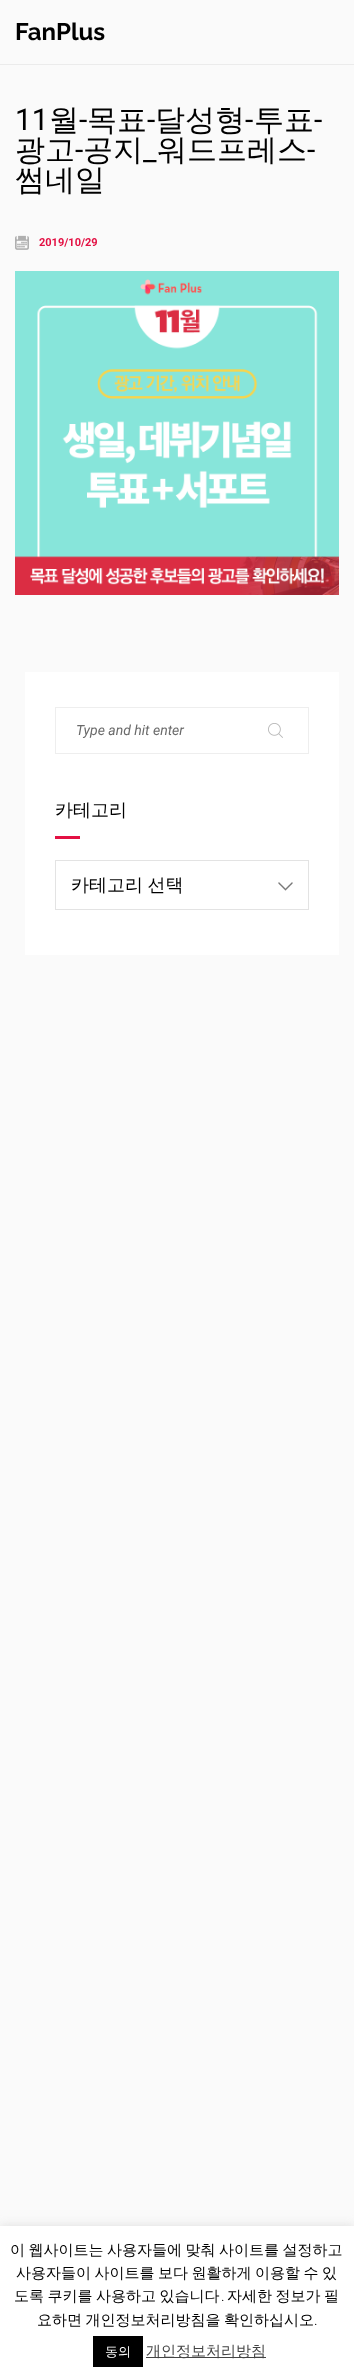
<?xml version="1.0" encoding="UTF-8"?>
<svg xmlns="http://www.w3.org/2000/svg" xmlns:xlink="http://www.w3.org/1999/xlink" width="354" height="2379">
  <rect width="100%" height="100%" fill="#fafafa" />
  <rect y="64" width="354" height="1" fill="#ebebeb" />
  <image x="15" y="235" width="14" height="15" xlink:href="image1.png" />
  <image x="15" y="271" width="324" height="324" xlink:href="image2.png" />
  <rect x="25" y="672" width="314" height="283" fill="#ffffff" />
  <rect x="55.5" y="707.5" width="253" height="46" fill="none" stroke="#eeeeee" />
  <image x="268" y="723" width="15" height="15" xlink:href="image3.png" />
  <rect x="55" y="836" width="25" height="3" fill="#e31043" />
  <image x="278" y="882" width="15" height="9" xlink:href="image4.png" />
  <rect x="55.5" y="860.5" width="253" height="49" fill="none" stroke="#e3e3e3" />
  <rect y="2225" width="354" height="153" fill="#acabab" fill-opacity="0.3" filter="blur(5px)" />
  <rect y="2226" width="354" height="153" fill="#ffffff" />
  <rect x="93" y="2336" width="50" height="31" fill="#000000" />
  <rect x="146" y="2357" width="120" height="1" fill="#444444" />
  <text x="15" y="40" style="font-family: Raleway; font-size: 24px; font-weight: bold; fill: #000000">FanPlus</text>
  <text x="15" y="130" style="font-family: Roboto; font-size: 30px; fill: #000000">11</text>
  <text x="49" y="130" style="font-family: WenQuanYi Zen Hei; font-size: 30px; font-weight: 500; fill: #000000">월</text>
  <text x="79" y="130" style="font-family: Roboto; font-size: 30px; fill: #000000">-</text>
  <text x="87" y="130" style="font-family: WenQuanYi Zen Hei; font-size: 30px; font-weight: 500; fill: #000000">목표</text>
  <text x="147" y="130" style="font-family: Roboto; font-size: 30px; fill: #000000">-</text>
  <text x="155" y="130" style="font-family: WenQuanYi Zen Hei; font-size: 30px; font-weight: 500; fill: #000000">달성형</text>
  <text x="245" y="130" style="font-family: Roboto; font-size: 30px; fill: #000000">-</text>
  <text x="254" y="130" style="font-family: WenQuanYi Zen Hei; font-size: 30px; font-weight: 500; fill: #000000">투표</text>
  <text x="314" y="130" style="font-family: Roboto; font-size: 30px; fill: #000000">-</text>
  <text x="15" y="160" style="font-family: WenQuanYi Zen Hei; font-size: 30px; font-weight: 500; fill: #000000">광고</text>
  <text x="75" y="160" style="font-family: Roboto; font-size: 30px; fill: #000000">-</text>
  <text x="83" y="160" style="font-family: WenQuanYi Zen Hei; font-size: 30px; font-weight: 500; fill: #000000">공지</text>
  <text x="157" y="160" style="font-family: WenQuanYi Zen Hei; font-size: 30px; font-weight: 500; fill: #000000">워드프레스</text>
  <text x="307" y="160" style="font-family: Roboto; font-size: 30px; fill: #000000">-</text>
  <text x="143" y="160" style="font-family: Roboto; font-size: 30px; fill: #000000">_</text>
  <text x="15" y="190" style="font-family: WenQuanYi Zen Hei; font-size: 30px; font-weight: 500; fill: #000000">썸네일</text>
  <text x="39" y="246" style="font-family: Roboto; font-size: 11px; font-weight: bold; fill: #e31043">2019/10/29</text>
  <text x="76" y="735" style="font-family: Roboto; font-size: 14px; font-style: italic; fill: #6a6a6a">Type and hit enter</text>
  <text x="55" y="816" style="font-family: WenQuanYi Zen Hei; font-size: 18px; font-weight: 500; fill: #000000">카테고리</text>
  <text x="71" y="891" word-spacing="-1" style="font-family: WenQuanYi Zen Hei; font-size: 18px; font-weight: 500; fill: #000000">카테고리 선택</text>
  <text x="10" y="2255" word-spacing="-1" style="font-family: WenQuanYi Zen Hei; font-size: 15px; font-weight: 500; fill: #000000">이 웹사이트는 사용자들에 맞춰 사이트를 설정하고</text>
  <text x="16" y="2278" word-spacing="-1" style="font-family: WenQuanYi Zen Hei; font-size: 15px; font-weight: 500; fill: #000000">사용자들이 사이트를 보다 원활하게 이용할 수 있</text>
  <text x="14" y="2301" word-spacing="-1" style="font-family: WenQuanYi Zen Hei; font-size: 15px; font-weight: 500; fill: #000000">도록 쿠키를 사용하고 있습니다</text>
  <text x="221" y="2301" style="font-family: Roboto; font-size: 15px; font-weight: 300; fill: #000000">.</text>
  <text x="227" y="2301" word-spacing="-1" style="font-family: WenQuanYi Zen Hei; font-size: 15px; font-weight: 500; fill: #000000">자세한 정보가 필</text>
  <text x="37" y="2325" word-spacing="-1" style="font-family: WenQuanYi Zen Hei; font-size: 15px; font-weight: 500; fill: #000000">요하면 개인정보처리방침을 확인하십시오</text>
  <text x="314" y="2325" style="font-family: Roboto; font-size: 15px; font-weight: 300; fill: #000000">.</text>
  <text x="105" y="2356" style="font-family: WenQuanYi Zen Hei; font-size: 13px; font-weight: 500; fill: #ffffff">동의</text>
  <text x="146" y="2356" style="font-family: WenQuanYi Zen Hei; font-size: 15px; font-weight: 500; fill: #444444">개인정보처리방침</text>
</svg>
